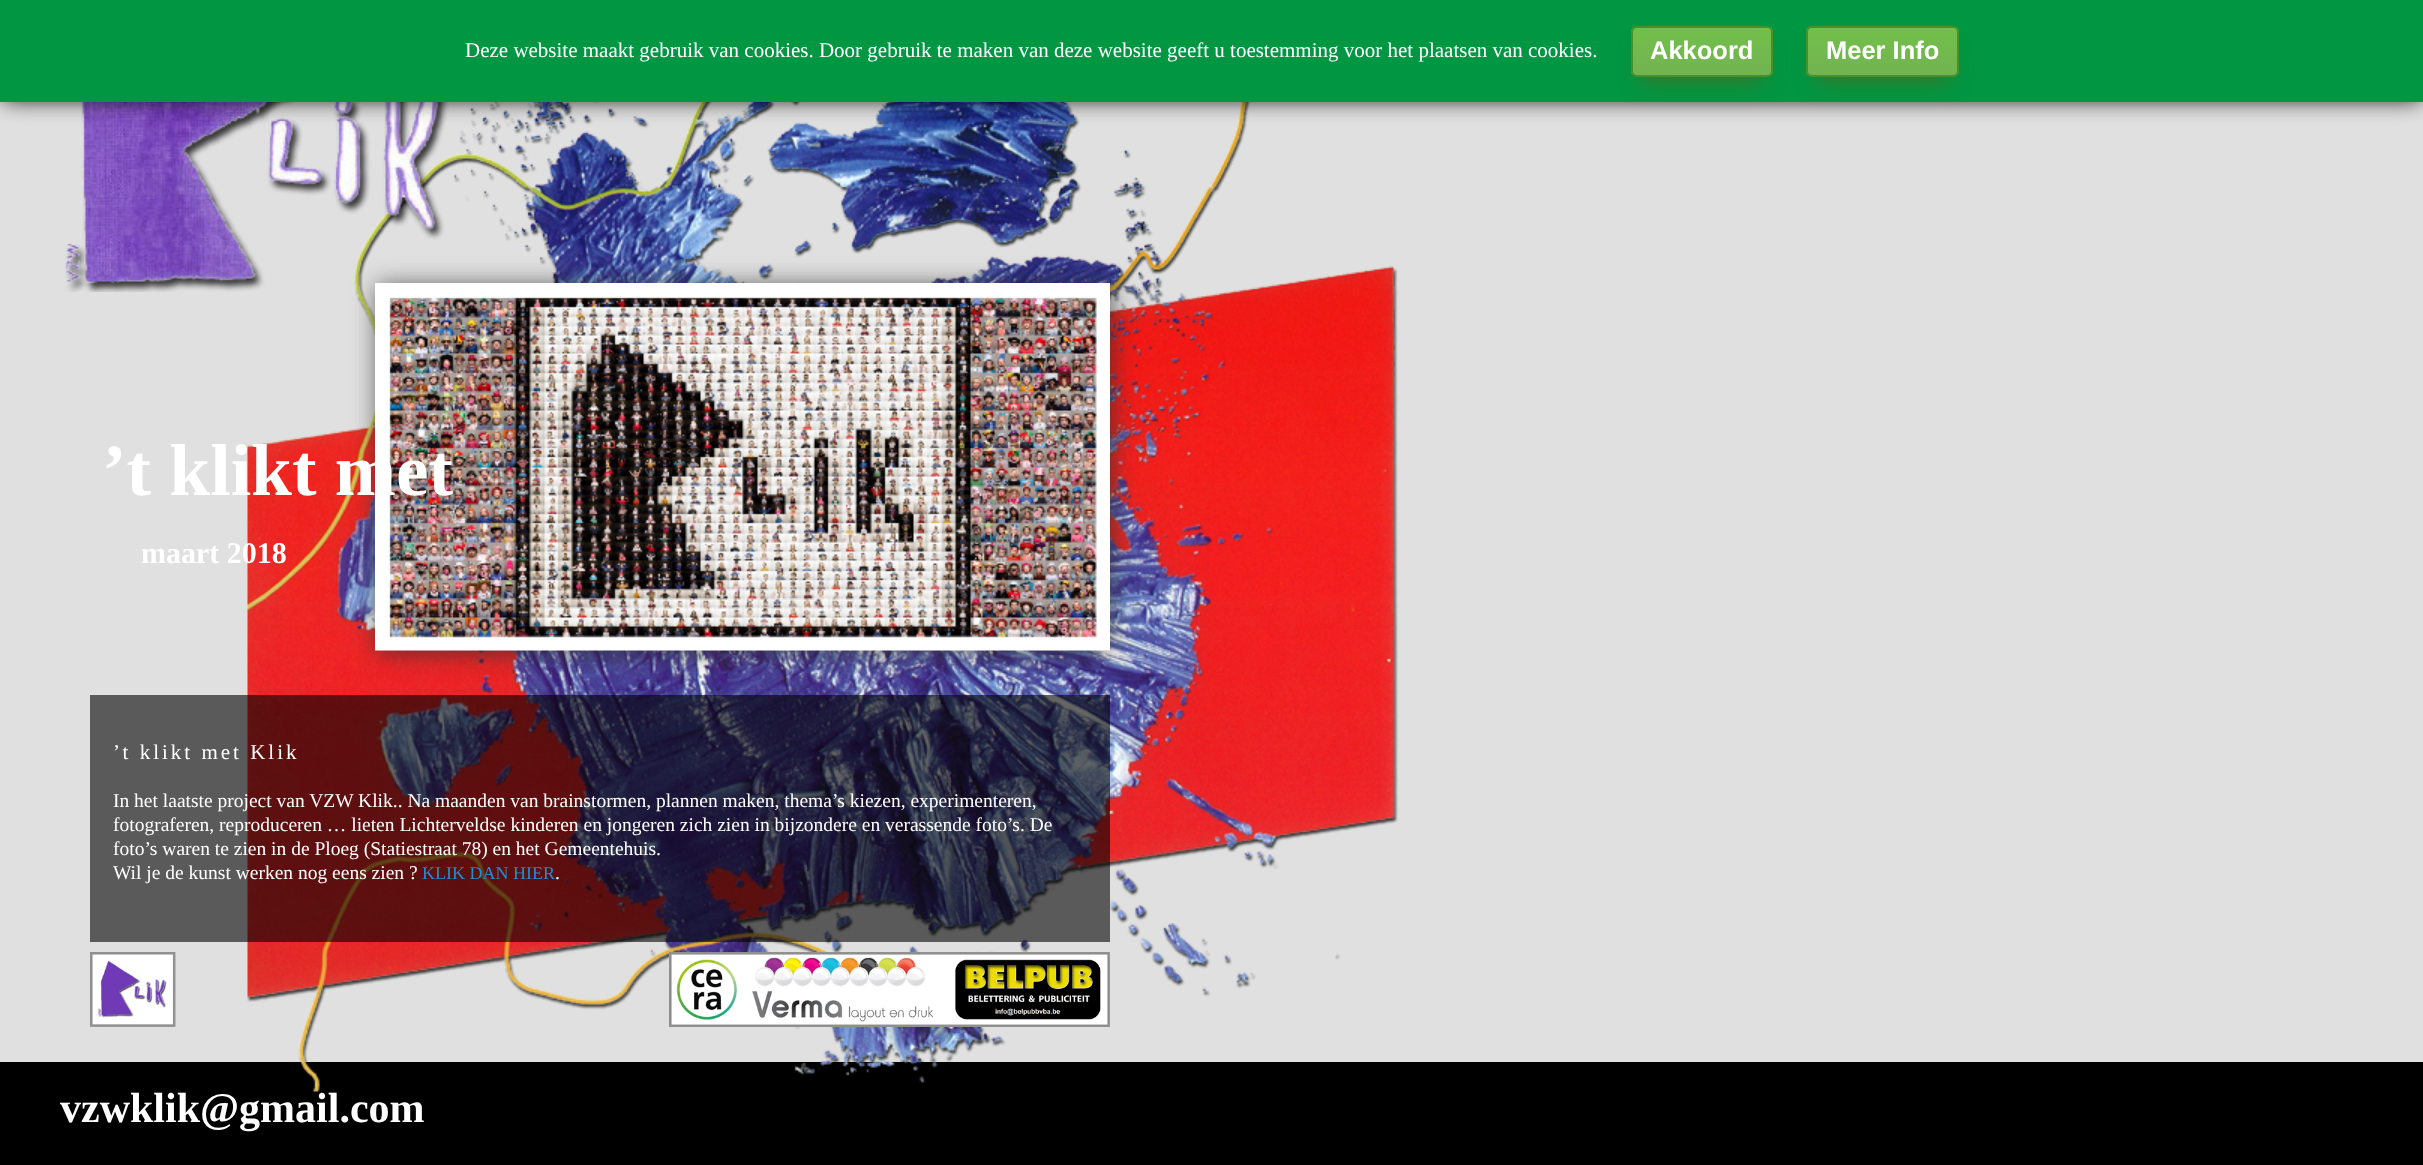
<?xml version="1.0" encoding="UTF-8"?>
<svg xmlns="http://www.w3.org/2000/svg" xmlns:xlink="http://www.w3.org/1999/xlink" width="2423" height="1165">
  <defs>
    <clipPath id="clip1"><rect x="1631" y="26" width="142" height="51" rx="6" /></clipPath>
    <linearGradient id="g1" gradientUnits="userSpaceOnUse" x1="1702" y1="27" x2="1702" y2="75"><stop offset="0.05" stop-color="#72bf4a" /><stop offset="1" stop-color="#72b352" /></linearGradient>
    <clipPath id="clip2"><rect x="1806" y="26" width="153" height="51" rx="6" /></clipPath>
    <linearGradient id="g2" gradientUnits="userSpaceOnUse" x1="1883" y1="27" x2="1883" y2="75"><stop offset="0.05" stop-color="#72bf4a" /><stop offset="1" stop-color="#72b352" /></linearGradient>
  </defs>
  <rect width="100%" height="100%" fill="#000000" />
  <rect y="102" width="2423" height="960" fill="#e0e0e0" />
  <image x="247" y="102" width="1151" height="990" xlink:href="image2.png" />
  <rect x="377" y="285" width="735" height="368" fill="#323232" fill-opacity="0.75" filter="blur(12px)" />
  <image x="375" y="283" width="735" height="368" xlink:href="image3.png" />
  <image x="65" y="102" width="384" height="190" xlink:href="image1.png" />
  <rect x="3" y="3" width="2418" height="96" fill="#000000" filter="blur(11px)" />
  <rect width="2423" height="102" fill="#009642" />
  <rect x="1641" y="51" width="122" height="30" fill="#3e7327" filter="blur(10.5px)" />
  <g clip-path="url(#clip1)">
    <rect x="1631" y="27" width="142" height="48" fill="url(#g1)" />
  </g>
  <rect x="1632" y="27" width="140" height="49" rx="5" fill="none" stroke="#4b8f29" stroke-width="2" />
  <rect x="1817" y="51" width="132" height="30" fill="#3e7327" filter="blur(10.5px)" />
  <g clip-path="url(#clip2)">
    <rect x="1806" y="27" width="153" height="48" fill="url(#g2)" />
  </g>
  <rect x="1807" y="27" width="151" height="49" rx="5" fill="none" stroke="#4b8f29" stroke-width="2" />
  <rect x="90" y="695" width="1020" height="247" fill="#000000" fill-opacity="0.6" />
  <image x="90" y="952" width="86" height="75" xlink:href="image4.png" />
  <image x="669" y="952" width="441" height="75" xlink:href="image5.png" />
  <text x="465" y="57" style="font-family: Liberation Serif; font-size: 21px; fill: #ffffff">Deze website maakt gebruik van cookies. Door gebruik te maken van deze website geeft u toestemming voor het plaatsen van cookies.</text>
  <text x="1650" y="59" style="font-family: Liberation Sans; font-size: 25.5px; font-weight: bold; fill: #ffffff">Akkoord</text>
  <text x="1826" y="59" style="font-family: Liberation Sans; font-size: 25.5px; font-weight: bold; fill: #ffffff">Meer Info</text>
  <text x="102" y="495" style="font-family: Liberation Serif; font-size: 73.5px; font-weight: bold; fill: #ffffff">’t klikt met</text>
  <text x="141" y="563" style="font-family: Liberation Serif; font-size: 30px; font-weight: bold; fill: #ffffff">maart 2018</text>
  <text x="113" y="759" style="font-family: Liberation Serif; font-size: 21px; letter-spacing: 3px; fill: #ffffff">’t klikt met Klik</text>
  <text x="113" y="807" style="font-family: Liberation Serif; font-size: 19.5px; fill: #ffffff">In het laatste project van VZW Klik.. Na maanden van brainstormen, plannen maken, thema’s kiezen, experimenteren,</text>
  <text x="113" y="831" style="font-family: Liberation Serif; font-size: 19.5px; fill: #ffffff">fotograferen, reproduceren … lieten Lichterveldse kinderen en jongeren zich zien in bijzondere en verassende foto’s. De</text>
  <text x="113" y="855" style="font-family: Liberation Serif; font-size: 19.5px; fill: #ffffff">foto’s waren te zien in de Ploeg (Statiestraat 78) en het Gemeentehuis.</text>
  <text x="113" y="879" style="font-family: Liberation Serif; font-size: 19.5px; fill: #ffffff">Wil je de kunst werken nog eens zien ?</text>
  <text x="422" y="879" style="font-family: Liberation Serif; font-size: 18px; fill: #228cd4">KLIK DAN HIER</text>
  <text x="555" y="879" style="font-family: Liberation Serif; font-size: 19.5px; fill: #ffffff">.</text>
  <text x="60" y="1122" style="font-family: Liberation Serif; font-size: 42px; font-weight: bold; fill: #ffffff">vzwklik@gmail.com</text>
</svg>
